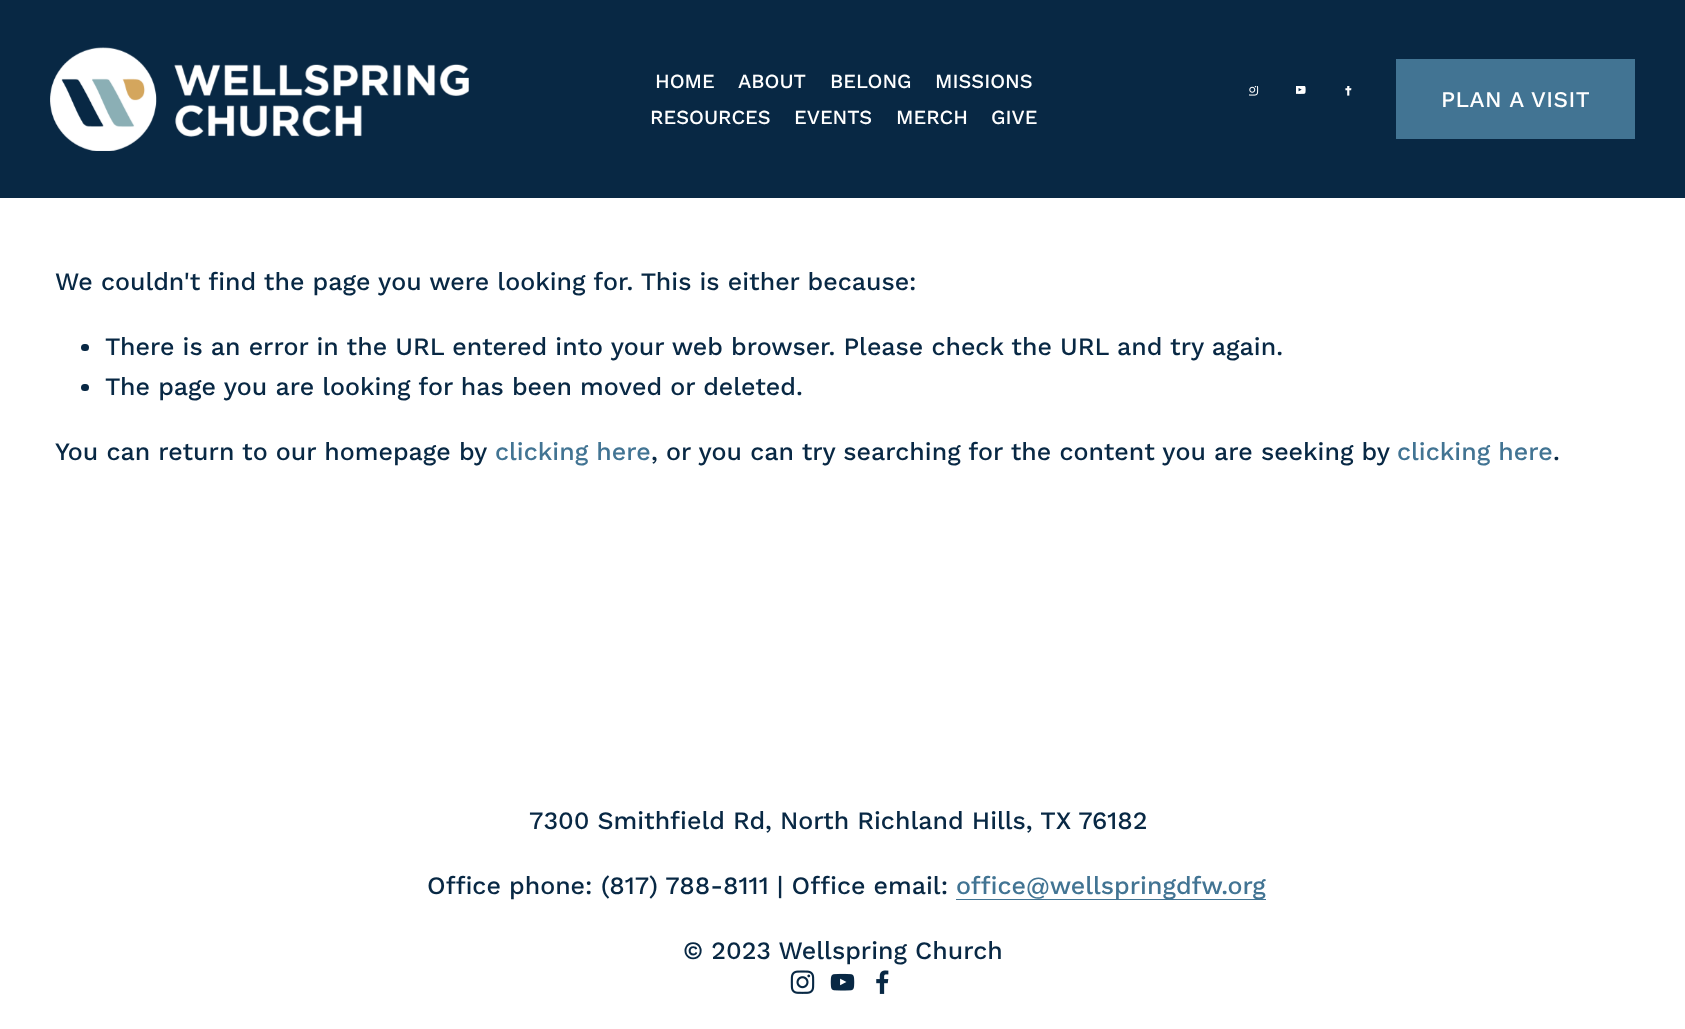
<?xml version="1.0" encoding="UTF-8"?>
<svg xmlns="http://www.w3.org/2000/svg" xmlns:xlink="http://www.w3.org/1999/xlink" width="1685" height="1029">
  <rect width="100%" height="100%" fill="#ffffff" />
  <rect width="1685" height="198" fill="#082844" />
  <image x="50" y="47" width="419" height="104" xlink:href="image1.png" />
  <image x="1249" y="86" width="10" height="10" xlink:href="image2.png" />
  <image x="1296" y="86" width="10" height="8" xlink:href="image3.png" />
  <image x="1345" y="86" width="7" height="10" xlink:href="image4.png" />
  <rect x="1396" y="59" width="239" height="80" fill="#427493" />
  <rect x="81" y="344" width="8" height="7" rx="3.5" fill="#082844" />
  <rect x="81" y="384" width="8" height="7" rx="3.5" fill="#082844" />
  <rect x="956" y="899" width="310" height="1" fill="#427493" />
  <image x="790" y="970" width="25" height="24" xlink:href="image5.png" />
  <image x="830" y="973" width="25" height="18" xlink:href="image6.png" />
  <image x="876" y="970" width="13" height="24" xlink:href="image7.png" />
  <text x="655" y="88" style="font-family: Work Sans; font-size: 20px; font-weight: 500; fill: #ffffff">HOME</text>
  <text x="738" y="88" style="font-family: Work Sans; font-size: 20px; font-weight: 500; fill: #ffffff">ABOUT</text>
  <text x="830" y="88" style="font-family: Work Sans; font-size: 20px; font-weight: 500; fill: #ffffff">BELONG</text>
  <text x="935" y="88" style="font-family: Work Sans; font-size: 20px; font-weight: 500; fill: #ffffff">MISSIONS</text>
  <text x="650" y="124" style="font-family: Work Sans; font-size: 20px; font-weight: 500; fill: #ffffff">RESOURCES</text>
  <text x="794" y="124" style="font-family: Work Sans; font-size: 20px; font-weight: 500; fill: #ffffff">EVENTS</text>
  <text x="896" y="124" style="font-family: Work Sans; font-size: 20px; font-weight: 500; fill: #ffffff">MERCH</text>
  <text x="991" y="124" style="font-family: Work Sans; font-size: 20px; font-weight: 500; fill: #ffffff">GIVE</text>
  <text x="1441" y="107" style="font-family: Work Sans; font-size: 22.5px; font-weight: 500; letter-spacing: 0.5px; fill: #ffffff">PLAN A VISIT</text>
  <text x="55" y="290" style="font-family: Work Sans; font-size: 25px; font-weight: 500; fill: #082844">We couldn't find the page you were looking for. This is either because:</text>
  <text x="105" y="355" style="font-family: Work Sans; font-size: 25px; font-weight: 500; fill: #082844">There is an error in the URL entered into your web browser. Please check the URL and try again.</text>
  <text x="105" y="395" style="font-family: Work Sans; font-size: 25px; font-weight: 500; fill: #082844">The page you are looking for has been moved or deleted.</text>
  <text x="55" y="460" style="font-family: Work Sans; font-size: 25px; font-weight: 500; fill: #082844">You can return to our homepage by</text>
  <text x="495" y="460" style="font-family: Work Sans; font-size: 25px; font-weight: 500; fill: #427493">clicking here</text>
  <text x="651" y="460" style="font-family: Work Sans; font-size: 25px; font-weight: 500; fill: #082844">, or you can try searching for the content you are seeking by</text>
  <text x="1397" y="460" style="font-family: Work Sans; font-size: 25px; font-weight: 500; fill: #427493">clicking here</text>
  <text x="1553" y="460" style="font-family: Work Sans; font-size: 25px; font-weight: 500; fill: #082844">.</text>
  <text x="529" y="829" style="font-family: Work Sans; font-size: 25px; font-weight: 500; fill: #082844">7300 Smithfield Rd, North Richland Hills, TX 76182</text>
  <text x="427" y="894" style="font-family: Work Sans; font-size: 25px; font-weight: 500; fill: #082844">Office phone: (817) 788-8111 | Office email:</text>
  <text x="956" y="894" style="font-family: Work Sans; font-size: 25px; font-weight: 500; fill: #427493">office@wellspringdfw.org</text>
  <text x="683" y="959" style="font-family: Work Sans; font-size: 25px; font-weight: 500; fill: #082844">© 2023 Wellspring Church</text>
</svg>
